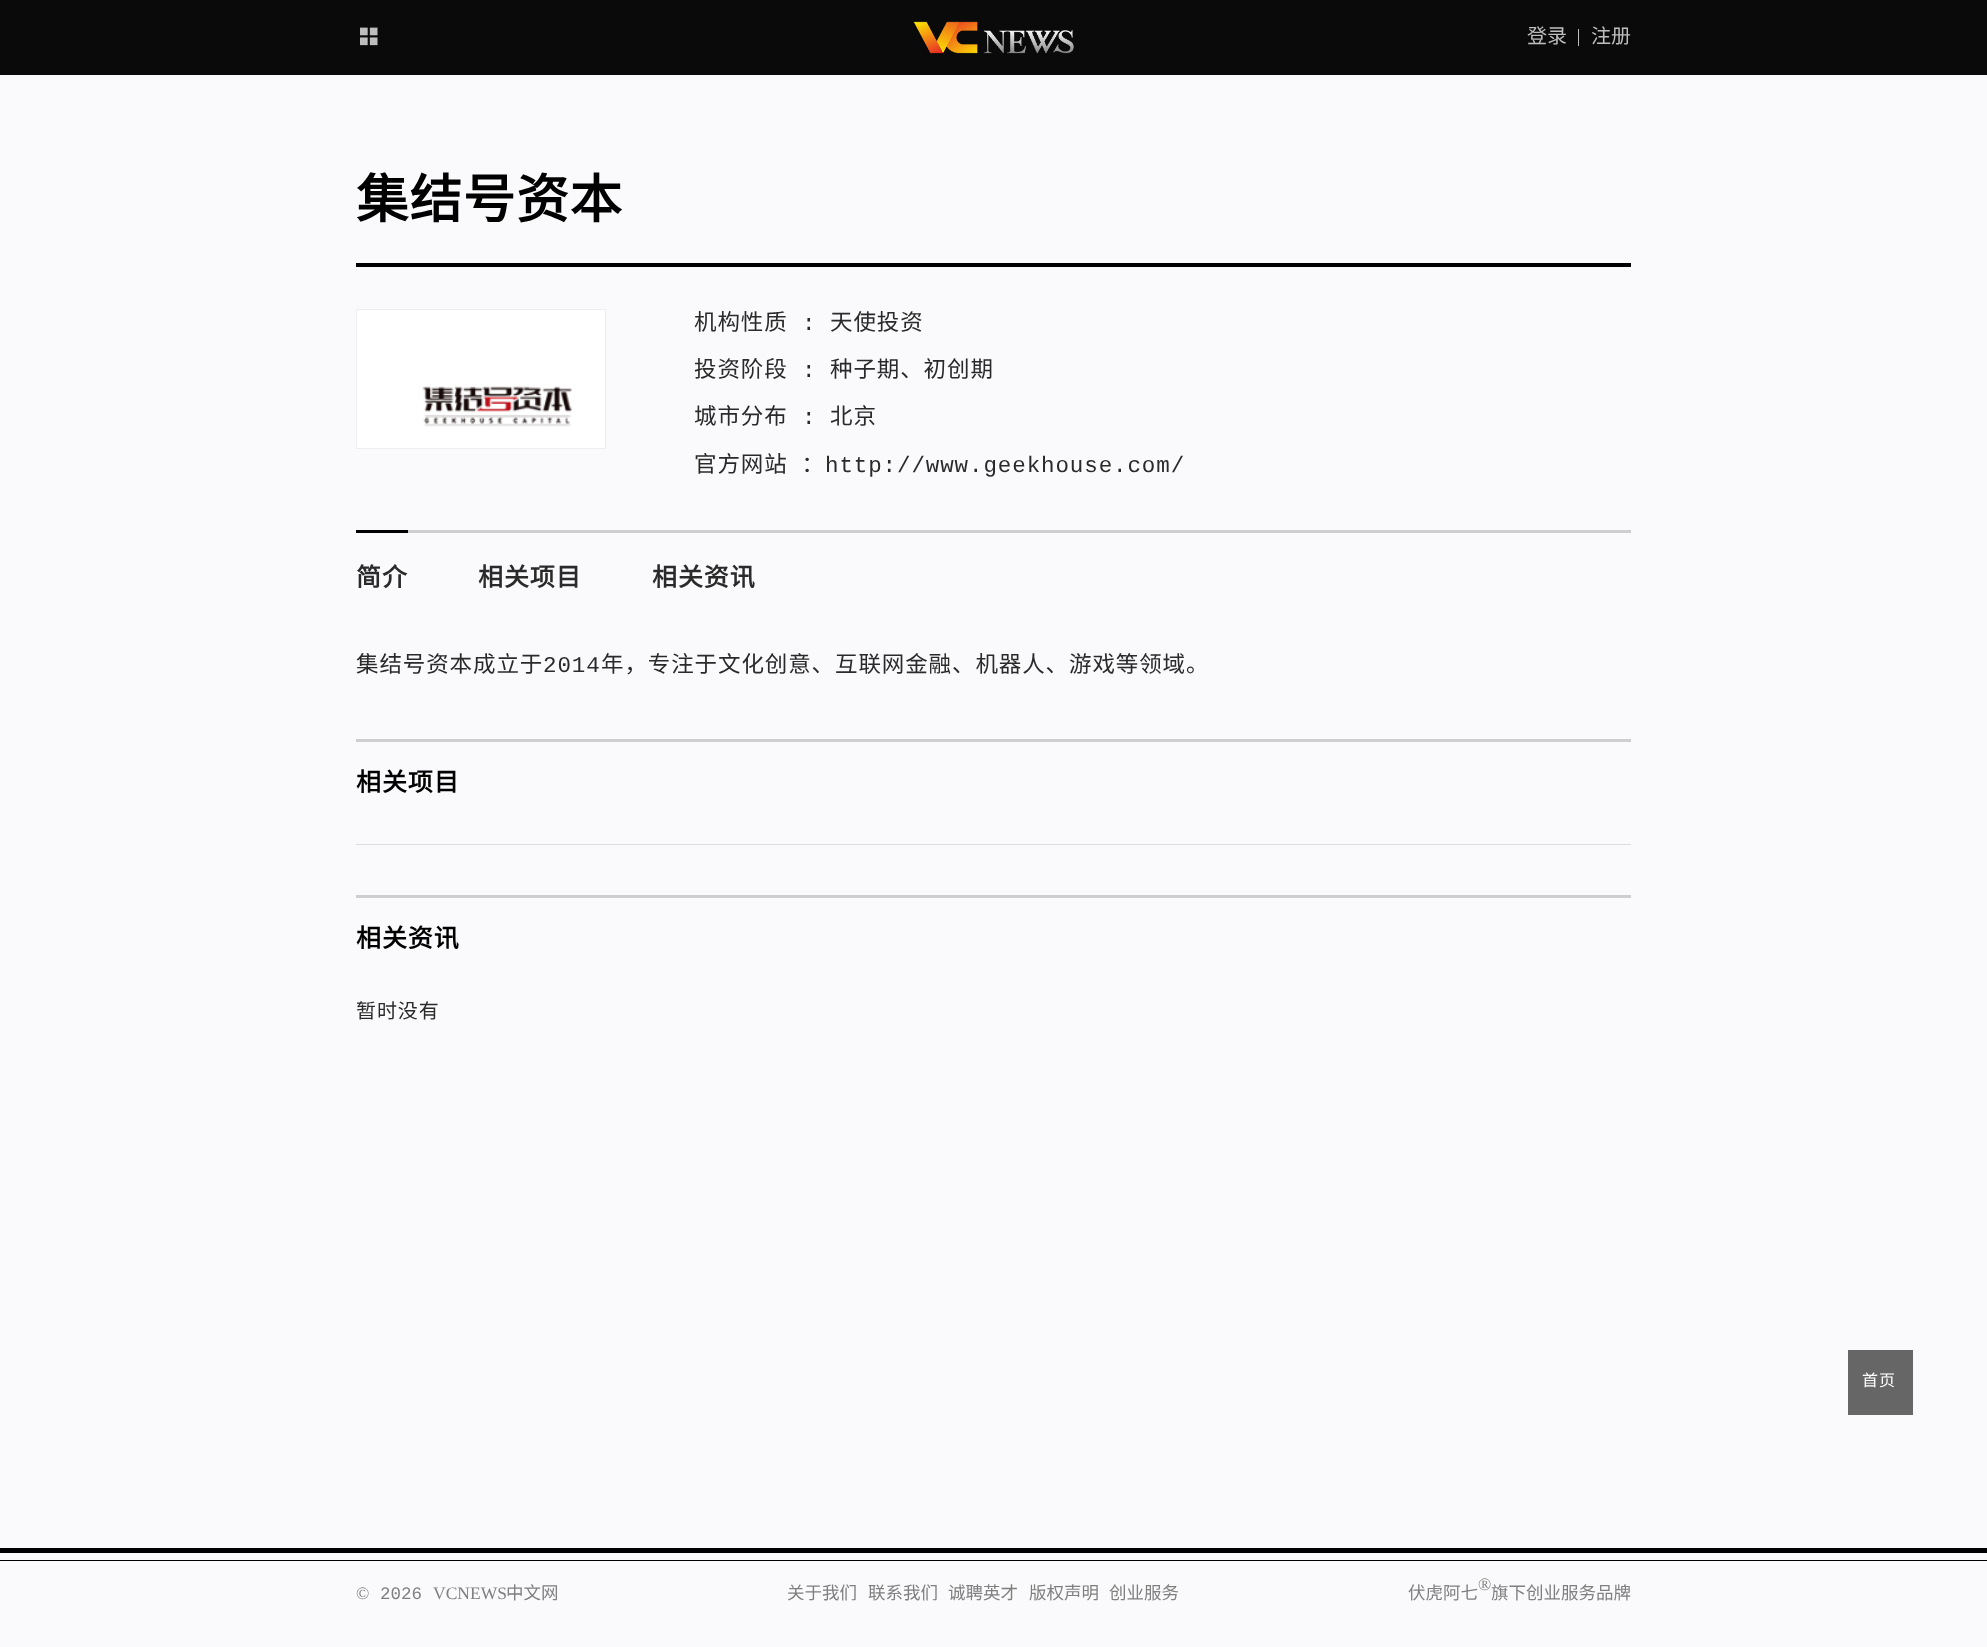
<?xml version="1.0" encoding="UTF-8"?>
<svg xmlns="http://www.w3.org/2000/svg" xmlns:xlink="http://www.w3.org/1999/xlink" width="1987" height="1647">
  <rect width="100%" height="100%" fill="#fafafc" />
  <rect width="1987" height="75" fill="#0a0a0a" />
  <image x="360" y="27" width="18" height="19" xlink:href="image1.png" />
  <image x="913" y="21" width="161" height="33" xlink:href="image2.png" />
  <rect x="1578" y="29" width="1" height="17" fill="#bebebe" />
  <rect x="356" y="263" width="1275" height="4" fill="#000000" />
  <rect x="356.5" y="309.5" width="249" height="139" fill="#ffffff" stroke="#eeeeee" />
  <image x="422" y="386" width="151" height="41" xlink:href="image3.png" />
  <rect x="408" y="530" width="1223" height="3" fill="#ceced0" />
  <rect x="356" y="530" width="52" height="3" fill="#000000" />
  <rect x="356" y="739" width="1275" height="3" fill="#ceced0" />
  <rect x="356" y="844" width="1275" height="1" fill="#dddddd" />
  <rect x="356" y="895" width="1275" height="3" fill="#ceced0" />
  <rect x="1848" y="1350" width="65" height="65" fill="#666666" />
  <rect y="1548" width="1987" height="5" fill="#000000" />
  <rect y="1560" width="1987" height="1" fill="#000000" />
  <text x="1527" y="43" style="font-family: Noto Sans CJK SC; font-size: 20px; fill: #bebebe">登录</text>
  <text x="1591" y="43" style="font-family: Noto Sans CJK SC; font-size: 20px; fill: #bebebe">注册</text>
  <text x="356" y="218" style="font-family: Noto Sans CJK SC; font-size: 52.5px; font-weight: bold; letter-spacing: 0.9px; fill: #000000">集结号资本</text>
  <text x="694" y="330" style="font-family: Noto Sans CJK SC; font-size: 22.5px; letter-spacing: 0.9px; fill: #2a2a2a">机构性质</text>
  <text x="802" y="330" style="font-family: Liberation Mono; font-size: 22.5px; letter-spacing: 0.9px; fill: #2a2a2a">:</text>
  <text x="830" y="330" style="font-family: Noto Sans CJK SC; font-size: 22.5px; letter-spacing: 0.9px; fill: #2a2a2a">天使投资</text>
  <text x="694" y="377" style="font-family: Noto Sans CJK SC; font-size: 22.5px; letter-spacing: 0.9px; fill: #2a2a2a">投资阶段</text>
  <text x="802" y="377" style="font-family: Liberation Mono; font-size: 22.5px; letter-spacing: 0.9px; fill: #2a2a2a">:</text>
  <text x="830" y="377" style="font-family: Noto Sans CJK SC; font-size: 22.5px; letter-spacing: 0.9px; fill: #2a2a2a">种子期、初创期</text>
  <text x="694" y="424" style="font-family: Noto Sans CJK SC; font-size: 22.5px; letter-spacing: 0.9px; fill: #2a2a2a">城市分布</text>
  <text x="802" y="424" style="font-family: Liberation Mono; font-size: 22.5px; letter-spacing: 0.9px; fill: #2a2a2a">:</text>
  <text x="830" y="424" style="font-family: Noto Sans CJK SC; font-size: 22.5px; letter-spacing: 0.9px; fill: #2a2a2a">北京</text>
  <text x="694" y="472" word-spacing="8" style="font-family: Noto Sans CJK SC; font-size: 22.5px; letter-spacing: 0.9px; fill: #2a2a2a">官方网站 ：</text>
  <text x="825" y="472" style="font-family: Liberation Mono; font-size: 22.5px; letter-spacing: 0.9px; fill: #2a2a2a">http://www.geekhouse.com/</text>
  <text x="356" y="586" style="font-family: Noto Sans CJK SC; font-size: 25px; font-weight: bold; letter-spacing: 0.9px; fill: #2a2a2a">简介</text>
  <text x="478" y="586" style="font-family: Noto Sans CJK SC; font-size: 25px; font-weight: bold; letter-spacing: 0.9px; fill: #2a2a2a">相关项目</text>
  <text x="652" y="586" style="font-family: Noto Sans CJK SC; font-size: 25px; font-weight: bold; letter-spacing: 0.9px; fill: #2a2a2a">相关资讯</text>
  <text x="356" y="672" style="font-family: Noto Sans CJK SC; font-size: 22.5px; letter-spacing: 0.9px; fill: #2a2a2a">集结号资本成立于</text>
  <text x="543" y="672" style="font-family: Liberation Mono; font-size: 22.5px; letter-spacing: 0.9px; fill: #2a2a2a">2014</text>
  <text x="601" y="672" style="font-family: Noto Sans CJK SC; font-size: 22.5px; letter-spacing: 0.9px; fill: #2a2a2a">年，专注于文化创意、互联网金融、机器人、游戏等领域。</text>
  <text x="356" y="791" style="font-family: Noto Sans CJK SC; font-size: 25px; font-weight: bold; letter-spacing: 0.9px; fill: #000000">相关项目</text>
  <text x="356" y="947" style="font-family: Noto Sans CJK SC; font-size: 25px; font-weight: bold; letter-spacing: 0.9px; fill: #000000">相关资讯</text>
  <text x="356" y="1018" style="font-family: Noto Sans CJK SC; font-size: 20px; letter-spacing: 0.9px; fill: #2a2a2a">暂时没有</text>
  <text x="1862" y="1386" style="font-family: Noto Sans CJK SC; font-size: 16px; letter-spacing: 1px; fill: #ffffff">首页</text>
  <text x="356" y="1599" style="font-family: Liberation Serif; font-size: 17.5px; fill: #7f7f7f">©</text>
  <text x="380" y="1599" style="font-family: Liberation Mono; font-size: 17.5px; fill: #7f7f7f">2026</text>
  <text x="433" y="1599" style="font-family: Liberation Serif; font-size: 17.5px; fill: #7f7f7f">VCNEWS</text>
  <text x="506" y="1599" style="font-family: Noto Sans CJK SC; font-size: 17.5px; fill: #7f7f7f">中文网</text>
  <text x="787" y="1599" style="font-family: Noto Sans CJK SC; font-size: 17.5px; fill: #7f7f7f">关于我们</text>
  <text x="868" y="1599" style="font-family: Noto Sans CJK SC; font-size: 17.5px; fill: #7f7f7f">联系我们</text>
  <text x="948" y="1599" style="font-family: Noto Sans CJK SC; font-size: 17.5px; fill: #7f7f7f">诚聘英才</text>
  <text x="1029" y="1599" style="font-family: Noto Sans CJK SC; font-size: 17.5px; fill: #7f7f7f">版权声明</text>
  <text x="1109" y="1599" style="font-family: Noto Sans CJK SC; font-size: 17.5px; fill: #7f7f7f">创业服务</text>
  <text x="1408" y="1599" style="font-family: Noto Sans CJK SC; font-size: 17.5px; fill: #7f7f7f">伏虎阿七</text>
  <text x="1478" y="1590" style="font-family: Liberation Serif; font-size: 17.5px; fill: #7f7f7f">®</text>
  <text x="1491" y="1599" style="font-family: Noto Sans CJK SC; font-size: 17.5px; fill: #7f7f7f">旗下创业服务品牌</text>
</svg>
